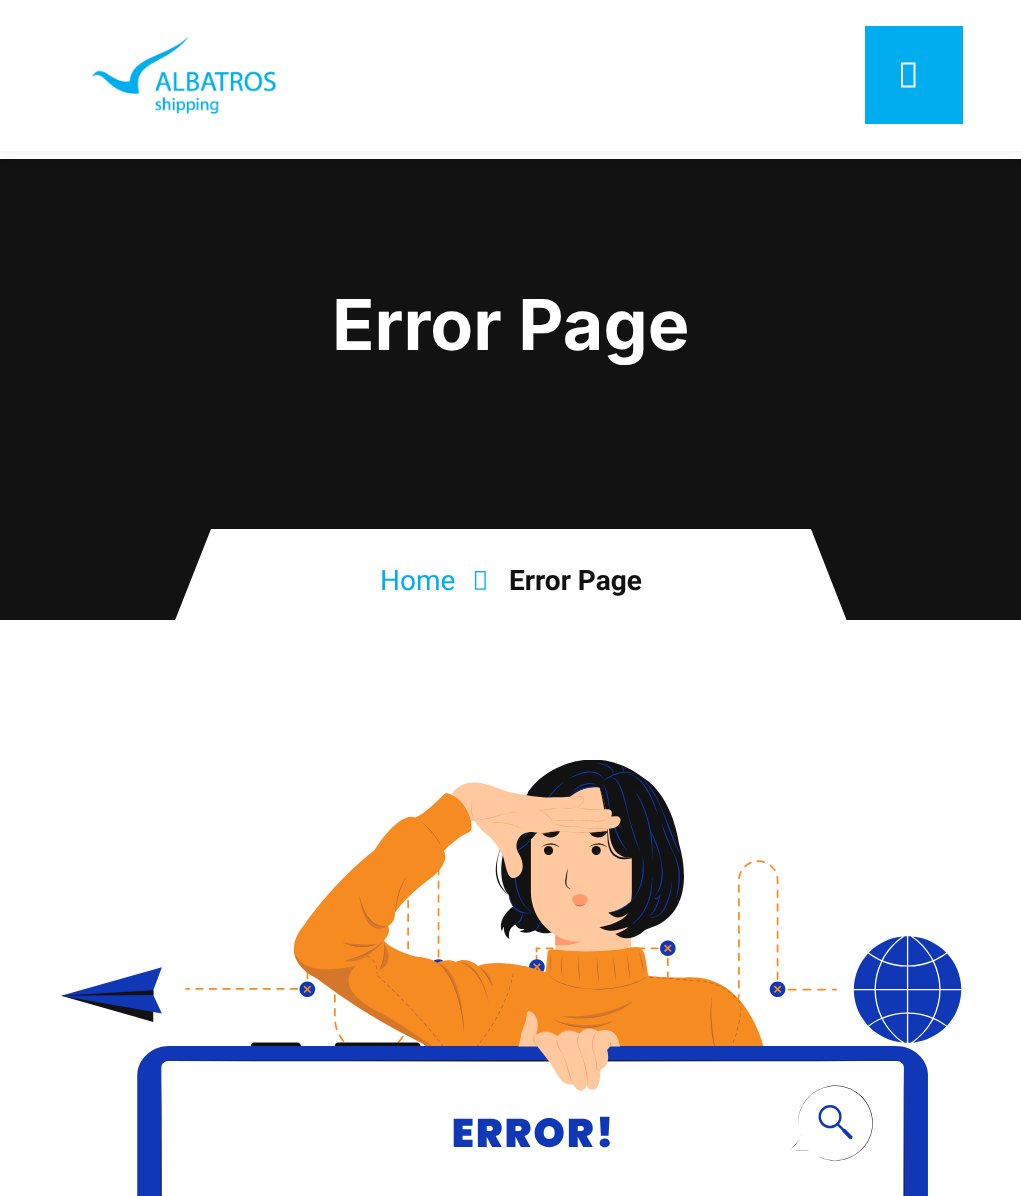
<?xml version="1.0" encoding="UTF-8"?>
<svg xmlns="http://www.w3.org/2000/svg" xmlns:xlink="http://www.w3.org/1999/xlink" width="1021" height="1196">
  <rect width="100%" height="100%" fill="#ffffff" />
  <rect y="159" width="1021" height="461" fill="#121212" />
  <rect width="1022" height="151" fill="#000000" fill-opacity="0.07" filter="blur(9px)" />
  <rect width="1021" height="151" fill="#ffffff" />
  <image x="92" y="37" width="184" height="77" xlink:href="image1.png" />
  <rect x="865" y="26" width="98" height="98" fill="#00aeef" />
  <path d="M 901 87.5 v -25 h 14.5 v 25 z m 2 -2 h 10.5 v -21 h -10.5 z" fill="#ffffff" />
  <path d="M 170 633 l 41 -104 h 600 l 41 105 h -682 z" fill="#ffffff" />
  <image x="474" y="571" width="12" height="19" xlink:href="image2.png" />
  <image x="61" y="760" width="901" height="436" xlink:href="image3.png" />
  <text x="332" y="350" style="font-family: Inter; font-size: 70px; font-weight: bold; fill: #ffffff">Error Page</text>
  <text x="380" y="590" style="font-family: Roboto; font-size: 28px; fill: #00aeef">Home</text>
  <text x="509" y="590" style="font-family: Roboto; font-size: 28px; font-weight: bold; fill: #121212">Error Page</text>
</svg>
